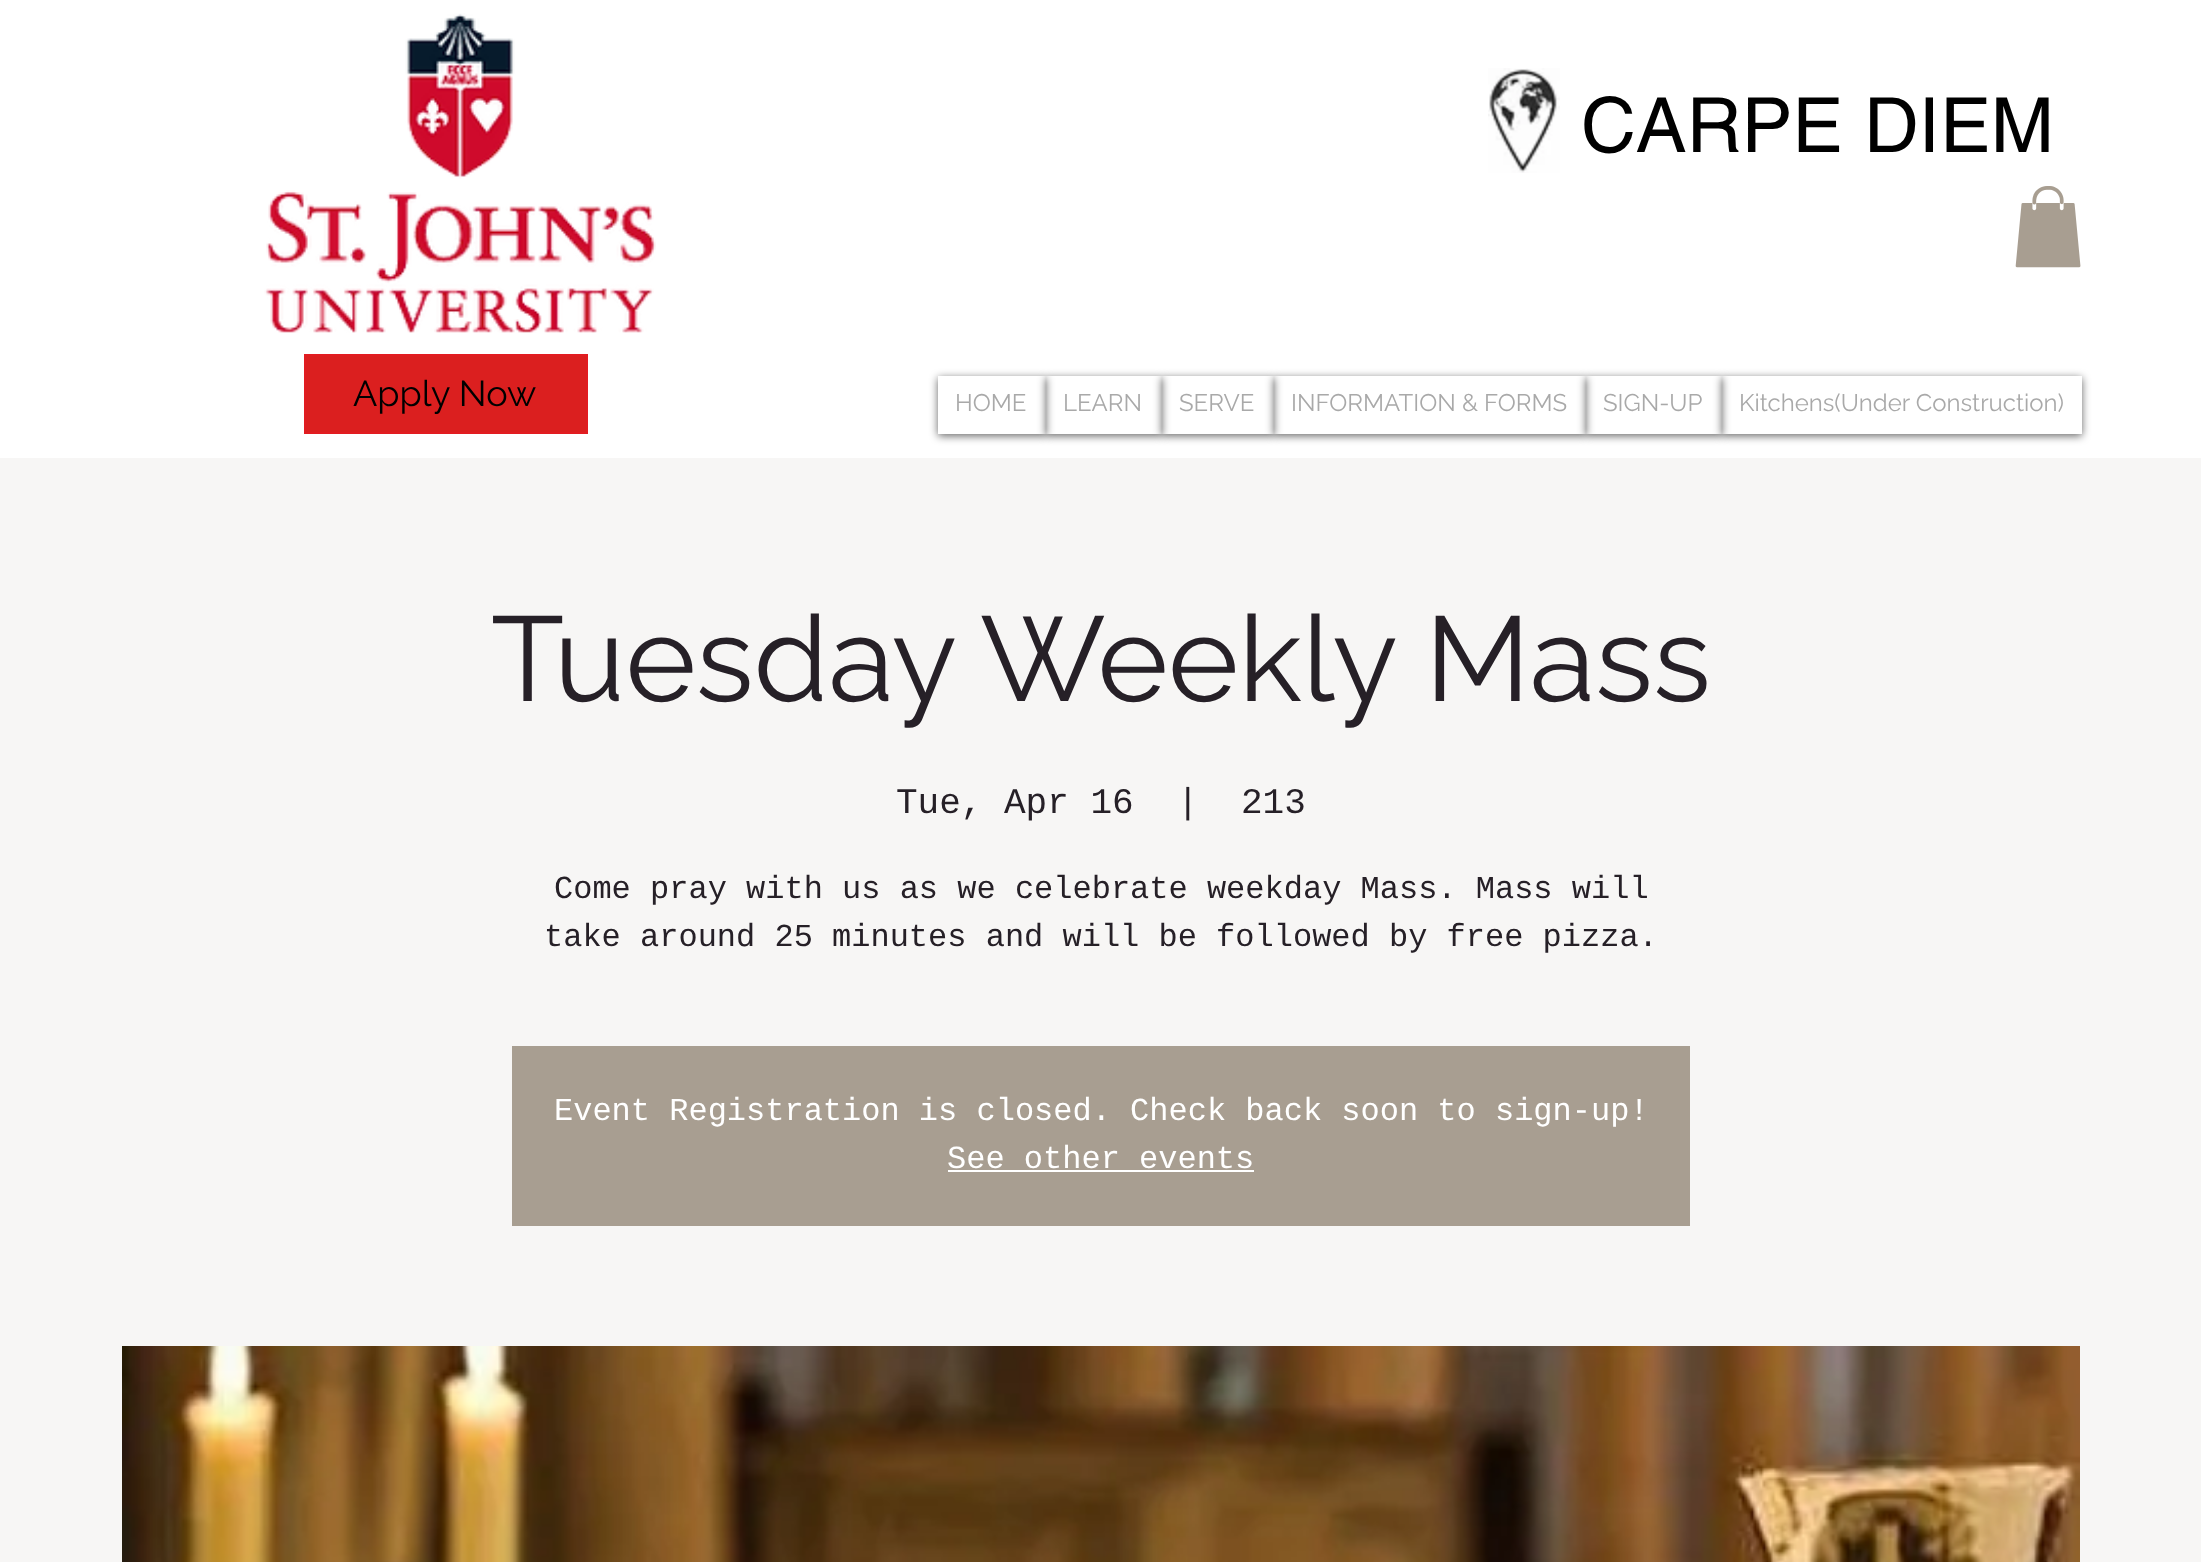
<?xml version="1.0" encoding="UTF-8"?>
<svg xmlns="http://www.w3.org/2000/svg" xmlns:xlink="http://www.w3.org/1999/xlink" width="2201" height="1562">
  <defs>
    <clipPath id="clip1"><path d="M 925 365 h 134 v 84 h -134 z m 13 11 h 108 v 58 h -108 z" clip-rule="evenodd" /></clipPath>
    <clipPath id="clip2"><path d="M 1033 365 h 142 v 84 h -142 z m 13 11 h 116 v 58 h -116 z" clip-rule="evenodd" /></clipPath>
    <clipPath id="clip3"><path d="M 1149 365 h 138 v 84 h -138 z m 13 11 h 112 v 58 h -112 z" clip-rule="evenodd" /></clipPath>
    <clipPath id="clip4"><path d="M 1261 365 h 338 v 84 h -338 z m 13 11 h 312 v 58 h -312 z" clip-rule="evenodd" /></clipPath>
    <clipPath id="clip5"><path d="M 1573 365 h 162 v 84 h -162 z m 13 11 h 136 v 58 h -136 z" clip-rule="evenodd" /></clipPath>
    <clipPath id="clip6"><path d="M 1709 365 h 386 v 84 h -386 z m 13 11 h 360 v 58 h -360 z" clip-rule="evenodd" /></clipPath>
  </defs>
  <rect width="100%" height="100%" fill="#ffffff" />
  <image x="264" y="13" width="392" height="320" xlink:href="image1.png" />
  <image x="1488" y="68" width="72" height="105" xlink:href="image2.png" />
  <image x="2015" y="186" width="66" height="82" xlink:href="image3.png" />
  <rect x="305" y="355" width="282" height="78" fill="#db1f1f" stroke="#e21c21" stroke-width="2" />
  <g clip-path="url(#clip1)">
    <rect x="938" y="378" width="108" height="58" fill="#000000" fill-opacity="0.6" filter="blur(4px)" />
  </g>
  <g clip-path="url(#clip2)">
    <rect x="1046" y="378" width="116" height="58" fill="#000000" fill-opacity="0.6" filter="blur(4px)" />
  </g>
  <g clip-path="url(#clip3)">
    <rect x="1162" y="378" width="112" height="58" fill="#000000" fill-opacity="0.6" filter="blur(4px)" />
  </g>
  <g clip-path="url(#clip4)">
    <rect x="1274" y="378" width="312" height="58" fill="#000000" fill-opacity="0.6" filter="blur(4px)" />
  </g>
  <g clip-path="url(#clip5)">
    <rect x="1586" y="378" width="136" height="58" fill="#000000" fill-opacity="0.6" filter="blur(4px)" />
  </g>
  <g clip-path="url(#clip6)">
    <rect x="1722" y="378" width="360" height="58" fill="#000000" fill-opacity="0.6" filter="blur(4px)" />
  </g>
  <rect y="458" width="2201" height="1104" fill="#f7f6f5" />
  <rect x="512" y="1046" width="1178" height="180" fill="#a89e91" />
  <rect x="948" y="1170" width="306" height="2" fill="#ffffff" />
  <image x="122" y="1346" width="1958" height="216" xlink:href="image4.png" />
  <text x="1581" y="152" style="font-family: helvetica; font-size: 76px; fill: #000000">CARPE DIEM</text>
  <text x="353" y="406" style="font-family: Raleway; font-size: 36px; fill: #000000">Apply Now</text>
  <text x="955" y="411" style="font-family: Raleway; font-size: 24px; fill: #a9a9a9">HOME</text>
  <text x="1063" y="411" style="font-family: Raleway; font-size: 24px; fill: #a9a9a9">LEARN</text>
  <text x="1179" y="411" style="font-family: Raleway; font-size: 24px; fill: #a9a9a9">SERVE</text>
  <text x="1291" y="411" style="font-family: Raleway; font-size: 24px; fill: #a9a9a9">INFORMATION &amp; FORMS</text>
  <text x="1603" y="411" style="font-family: Raleway; font-size: 24px; fill: #a9a9a9">SIGN-UP</text>
  <text x="1739" y="411" style="font-family: Raleway; font-size: 24px; fill: #a9a9a9">Kitchens(Under Construction)</text>
  <text x="491" y="701" style="font-family: Raleway; font-size: 120px; fill: #262027">Tuesday Weekly Mass</text>
  <text x="896" y="813" style="font-family: Liberation Mono; font-size: 36px; fill: #262027">Tue, Apr 16</text>
  <text x="1177" y="813" style="font-family: Liberation Mono; font-size: 36px; fill: #262027">|</text>
  <text x="1241" y="813" style="font-family: Liberation Mono; font-size: 36px; fill: #262027">213</text>
  <text x="554" y="898" style="font-family: Liberation Mono; font-size: 32px; fill: #262027">Come pray with us as we celebrate weekday Mass. Mass will</text>
  <text x="544" y="946" style="font-family: Liberation Mono; font-size: 32px; fill: #262027">take around 25 minutes and will be followed by free pizza.</text>
  <text x="554" y="1120" style="font-family: Liberation Mono; font-size: 32px; fill: #ffffff">Event Registration is closed. Check back soon to sign-up!</text>
  <text x="947" y="1168" style="font-family: Liberation Mono; font-size: 32px; fill: #ffffff">See other events</text>
</svg>
